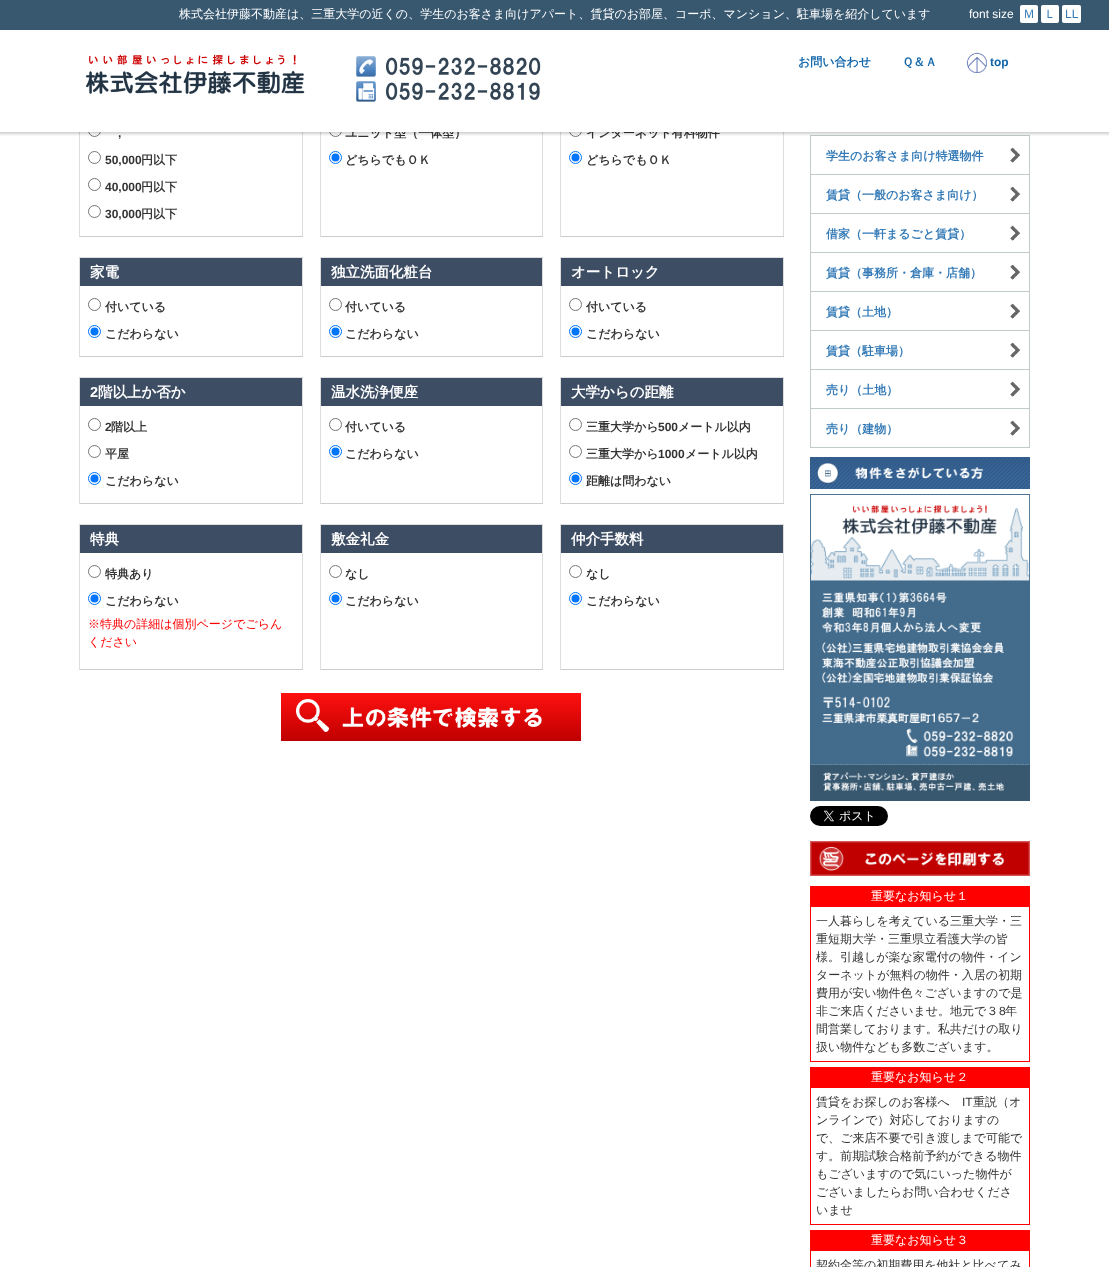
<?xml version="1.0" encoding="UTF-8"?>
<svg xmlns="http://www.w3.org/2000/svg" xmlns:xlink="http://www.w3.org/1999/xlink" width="1109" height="1267">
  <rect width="100%" height="100%" fill="#ffffff" />
  <rect width="1109" height="30" fill="#385870" />
  <rect x="1020" y="5" width="18" height="18" rx="2" fill="#ffffff" />
  <rect x="1041" y="5" width="18" height="18" rx="2" fill="#ffffff" />
  <rect x="1062" y="5" width="19" height="18" rx="2" fill="#ffffff" />
  <rect x="302" y="132" width="1" height="105" fill="#dddddd" />
  <rect x="79" y="236" width="224" height="1" fill="#cccccc" />
  <rect x="79" y="132" width="1" height="105" fill="#dddddd" />
  <circle cx="94.5" cy="130.5" r="6" fill="none" stroke="#767676" />
  <circle cx="94.5" cy="157.5" r="6" fill="none" stroke="#767676" />
  <circle cx="94.5" cy="184.5" r="6" fill="none" stroke="#767676" />
  <circle cx="94.5" cy="211.5" r="6" fill="none" stroke="#767676" />
  <rect x="542" y="132" width="1" height="105" fill="#dddddd" />
  <rect x="320" y="236" width="223" height="1" fill="#cccccc" />
  <rect x="320" y="132" width="1" height="105" fill="#dddddd" />
  <circle cx="335.5" cy="130.5" r="6" fill="none" stroke="#767676" />
  <circle cx="335.5" cy="157.5" r="6" fill="none" stroke="#0075ff" />
  <circle cx="335.5" cy="157.5" r="4" fill="#0075ff" />
  <rect x="783" y="132" width="1" height="105" fill="#dddddd" />
  <rect x="560" y="236" width="224" height="1" fill="#cccccc" />
  <rect x="560" y="132" width="1" height="105" fill="#dddddd" />
  <circle cx="575.5" cy="130.5" r="6" fill="none" stroke="#767676" />
  <circle cx="575.5" cy="157.5" r="6" fill="none" stroke="#0075ff" />
  <circle cx="575.5" cy="157.5" r="4" fill="#0075ff" />
  <rect x="79" y="257" width="224" height="1" fill="#dddddd" />
  <rect x="302" y="257" width="1" height="100" fill="#dddddd" />
  <rect x="79" y="356" width="224" height="1" fill="#cccccc" />
  <rect x="79" y="257" width="1" height="100" fill="#dddddd" />
  <rect x="80" y="258" width="222" height="28" fill="#3d4d64" />
  <circle cx="94.5" cy="304.5" r="6" fill="none" stroke="#767676" />
  <circle cx="94.5" cy="331.5" r="6" fill="none" stroke="#0075ff" />
  <circle cx="94.5" cy="331.5" r="4" fill="#0075ff" />
  <rect x="320" y="257" width="223" height="1" fill="#dddddd" />
  <rect x="542" y="257" width="1" height="100" fill="#dddddd" />
  <rect x="320" y="356" width="223" height="1" fill="#cccccc" />
  <rect x="320" y="257" width="1" height="100" fill="#dddddd" />
  <rect x="321" y="258" width="221" height="28" fill="#3d4d64" />
  <circle cx="335.5" cy="304.5" r="6" fill="none" stroke="#767676" />
  <circle cx="335.5" cy="331.5" r="6" fill="none" stroke="#0075ff" />
  <circle cx="335.5" cy="331.5" r="4" fill="#0075ff" />
  <rect x="560" y="257" width="224" height="1" fill="#dddddd" />
  <rect x="783" y="257" width="1" height="100" fill="#dddddd" />
  <rect x="560" y="356" width="224" height="1" fill="#cccccc" />
  <rect x="560" y="257" width="1" height="100" fill="#dddddd" />
  <rect x="561" y="258" width="222" height="28" fill="#3d4d64" />
  <circle cx="575.5" cy="304.5" r="6" fill="none" stroke="#767676" />
  <circle cx="575.5" cy="331.5" r="6" fill="none" stroke="#0075ff" />
  <circle cx="575.5" cy="331.5" r="4" fill="#0075ff" />
  <rect x="79" y="377" width="224" height="1" fill="#dddddd" />
  <rect x="302" y="377" width="1" height="127" fill="#dddddd" />
  <rect x="79" y="503" width="224" height="1" fill="#cccccc" />
  <rect x="79" y="377" width="1" height="127" fill="#dddddd" />
  <rect x="80" y="378" width="222" height="28" fill="#3d4d64" />
  <circle cx="94.5" cy="424.5" r="6" fill="none" stroke="#767676" />
  <circle cx="94.5" cy="451.5" r="6" fill="none" stroke="#767676" />
  <circle cx="94.5" cy="478.5" r="6" fill="none" stroke="#0075ff" />
  <circle cx="94.5" cy="478.5" r="4" fill="#0075ff" />
  <rect x="320" y="377" width="223" height="1" fill="#dddddd" />
  <rect x="542" y="377" width="1" height="127" fill="#dddddd" />
  <rect x="320" y="503" width="223" height="1" fill="#cccccc" />
  <rect x="320" y="377" width="1" height="127" fill="#dddddd" />
  <rect x="321" y="378" width="221" height="28" fill="#3d4d64" />
  <circle cx="335.5" cy="424.5" r="6" fill="none" stroke="#767676" />
  <circle cx="335.5" cy="451.5" r="6" fill="none" stroke="#0075ff" />
  <circle cx="335.5" cy="451.5" r="4" fill="#0075ff" />
  <rect x="560" y="377" width="224" height="1" fill="#dddddd" />
  <rect x="783" y="377" width="1" height="127" fill="#dddddd" />
  <rect x="560" y="503" width="224" height="1" fill="#cccccc" />
  <rect x="560" y="377" width="1" height="127" fill="#dddddd" />
  <rect x="561" y="378" width="222" height="28" fill="#3d4d64" />
  <circle cx="575.5" cy="424.5" r="6" fill="none" stroke="#767676" />
  <circle cx="575.5" cy="451.5" r="6" fill="none" stroke="#767676" />
  <circle cx="575.5" cy="478.5" r="6" fill="none" stroke="#0075ff" />
  <circle cx="575.5" cy="478.5" r="4" fill="#0075ff" />
  <rect x="79" y="524" width="224" height="1" fill="#dddddd" />
  <rect x="302" y="524" width="1" height="146" fill="#dddddd" />
  <rect x="79" y="669" width="224" height="1" fill="#cccccc" />
  <rect x="79" y="524" width="1" height="146" fill="#dddddd" />
  <rect x="80" y="525" width="222" height="28" fill="#3d4d64" />
  <circle cx="94.5" cy="571.5" r="6" fill="none" stroke="#767676" />
  <circle cx="94.5" cy="598.5" r="6" fill="none" stroke="#0075ff" />
  <circle cx="94.5" cy="598.5" r="4" fill="#0075ff" />
  <rect x="320" y="524" width="223" height="1" fill="#dddddd" />
  <rect x="542" y="524" width="1" height="146" fill="#dddddd" />
  <rect x="320" y="669" width="223" height="1" fill="#cccccc" />
  <rect x="320" y="524" width="1" height="146" fill="#dddddd" />
  <rect x="321" y="525" width="221" height="28" fill="#3d4d64" />
  <circle cx="335.5" cy="571.5" r="6" fill="none" stroke="#767676" />
  <circle cx="335.5" cy="598.5" r="6" fill="none" stroke="#0075ff" />
  <circle cx="335.5" cy="598.5" r="4" fill="#0075ff" />
  <rect x="560" y="524" width="224" height="1" fill="#dddddd" />
  <rect x="783" y="524" width="1" height="146" fill="#dddddd" />
  <rect x="560" y="669" width="224" height="1" fill="#cccccc" />
  <rect x="560" y="524" width="1" height="146" fill="#dddddd" />
  <rect x="561" y="525" width="222" height="28" fill="#3d4d64" />
  <circle cx="575.5" cy="571.5" r="6" fill="none" stroke="#767676" />
  <circle cx="575.5" cy="598.5" r="6" fill="none" stroke="#0075ff" />
  <circle cx="575.5" cy="598.5" r="4" fill="#0075ff" />
  <image x="281" y="693" width="300" height="48" xlink:href="image5.png" />
  <image x="1010" y="147" width="10" height="16" xlink:href="image6.png" />
  <rect x="810.5" y="135.5" width="219" height="39" fill="none" stroke="#c1cbcb" />
  <image x="1010" y="186" width="10" height="16" xlink:href="image6.png" />
  <rect x="810.5" y="174.5" width="219" height="39" fill="none" stroke="#c1cbcb" />
  <image x="1010" y="225" width="10" height="16" xlink:href="image6.png" />
  <rect x="810.5" y="213.5" width="219" height="39" fill="none" stroke="#c1cbcb" />
  <image x="1010" y="264" width="10" height="16" xlink:href="image6.png" />
  <rect x="810.5" y="252.5" width="219" height="39" fill="none" stroke="#c1cbcb" />
  <image x="1010" y="303" width="10" height="16" xlink:href="image6.png" />
  <rect x="810.5" y="291.5" width="219" height="39" fill="none" stroke="#c1cbcb" />
  <image x="1010" y="342" width="10" height="16" xlink:href="image6.png" />
  <rect x="810.5" y="330.5" width="219" height="39" fill="none" stroke="#c1cbcb" />
  <image x="1010" y="381" width="10" height="16" xlink:href="image6.png" />
  <rect x="810.5" y="369.5" width="219" height="39" fill="none" stroke="#c1cbcb" />
  <image x="1010" y="420" width="10" height="16" xlink:href="image6.png" />
  <rect x="810.5" y="408.5" width="219" height="39" fill="none" stroke="#c1cbcb" />
  <image x="810" y="457" width="220" height="32" xlink:href="image7.png" />
  <image x="816" y="463" width="168" height="21" xlink:href="image8.png" />
  <image x="810" y="494" width="220" height="307" xlink:href="image9.png" />
  <image x="810" y="806" width="78" height="20" xlink:href="image10.png" />
  <image x="810" y="841" width="220" height="35" xlink:href="image11.png" />
  <rect x="810" y="886" width="220" height="20" fill="#ff0000" />
  <rect x="810.5" y="906.5" width="219" height="155" fill="none" stroke="#ff0000" />
  <rect x="810" y="1067" width="220" height="20" fill="#ff0000" />
  <rect x="810.5" y="1087.5" width="219" height="137" fill="none" stroke="#ff0000" />
  <rect x="810" y="1230" width="220" height="20" fill="#ff0000" />
  <rect x="810.5" y="1250.5" width="219" height="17" fill="none" stroke="#ff0000" />
  <text x="179" y="18" style="font-family: WenQuanYi Zen Hei; font-size: 12px; font-weight: 500; fill: #ffffff">株式会社伊藤不動産は、三重大学の近くの、学生のお客さま向けアパート、賃貸のお部屋、コーポ、マンション、駐車場を紹介しています</text>
  <text x="969" y="18" style="font-family: Liberation Sans; font-size: 12px; fill: #ffffff">font size</text>
  <text x="1023" y="18" style="font-family: WenQuanYi Zen Hei; font-size: 12px; font-weight: 500; fill: #337ab7">Ｍ</text>
  <text x="1044" y="18" style="font-family: WenQuanYi Zen Hei; font-size: 12px; font-weight: 500; fill: #337ab7">Ｌ</text>
  <text x="1065" y="18" style="font-family: Liberation Sans; font-size: 12px; fill: #337ab7">LL</text>
  <text x="118" y="137" style="font-family: Liberation Sans; font-size: 12px; font-weight: bold; fill: #333333">,</text>
  <text x="105" y="164" style="font-family: Liberation Sans; font-size: 12px; font-weight: bold; fill: #333333">50,000</text>
  <text x="141" y="164" style="font-family: WenQuanYi Zen Hei; font-size: 12px; font-weight: bold; fill: #333333">円以下</text>
  <text x="105" y="191" style="font-family: Liberation Sans; font-size: 12px; font-weight: bold; fill: #333333">40,000</text>
  <text x="141" y="191" style="font-family: WenQuanYi Zen Hei; font-size: 12px; font-weight: bold; fill: #333333">円以下</text>
  <text x="105" y="218" style="font-family: Liberation Sans; font-size: 12px; font-weight: bold; fill: #333333">30,000</text>
  <text x="141" y="218" style="font-family: WenQuanYi Zen Hei; font-size: 12px; font-weight: bold; fill: #333333">円以下</text>
  <text x="345" y="137" style="font-family: WenQuanYi Zen Hei; font-size: 12px; font-weight: bold; fill: #333333">ユニット型（一体型）</text>
  <text x="345" y="164" style="font-family: WenQuanYi Zen Hei; font-size: 12px; font-weight: bold; fill: #333333">どちらでもＯＫ</text>
  <text x="586" y="137" style="font-family: WenQuanYi Zen Hei; font-size: 12px; font-weight: bold; fill: #333333">インターネット有料物件</text>
  <image x="0" y="30" width="1109" height="106" xlink:href="image1.png" />
  <text x="990" y="66" style="font-family: Liberation Sans; font-size: 12px; font-weight: bold; fill: #1166aa">top</text>
  <image x="966" y="52" width="21" height="21" xlink:href="image2.png" />
  <text x="902" y="66" style="font-family: WenQuanYi Zen Hei; font-size: 12px; font-weight: bold; fill: #1166aa">Ｑ＆Ａ</text>
  <text x="798" y="66" style="font-family: WenQuanYi Zen Hei; font-size: 12px; font-weight: bold; fill: #1166aa">お問い合わせ</text>
  <image x="356" y="56" width="185" height="46" xlink:href="image4.png" />
  <image x="85" y="54" width="220" height="40" xlink:href="image3.png" />
  <text x="586" y="164" style="font-family: WenQuanYi Zen Hei; font-size: 12px; font-weight: bold; fill: #333333">どちらでもＯＫ</text>
  <text x="90" y="277" style="font-family: WenQuanYi Zen Hei; font-size: 14.5px; font-weight: bold; fill: #ffffff">家電</text>
  <text x="105" y="311" style="font-family: WenQuanYi Zen Hei; font-size: 12px; font-weight: bold; fill: #333333">付いている</text>
  <text x="105" y="338" style="font-family: WenQuanYi Zen Hei; font-size: 12px; font-weight: bold; fill: #333333">こだわらない</text>
  <text x="331" y="277" style="font-family: WenQuanYi Zen Hei; font-size: 14.5px; font-weight: bold; fill: #ffffff">独立洗面化粧台</text>
  <text x="345" y="311" style="font-family: WenQuanYi Zen Hei; font-size: 12px; font-weight: bold; fill: #333333">付いている</text>
  <text x="345" y="338" style="font-family: WenQuanYi Zen Hei; font-size: 12px; font-weight: bold; fill: #333333">こだわらない</text>
  <text x="571" y="277" style="font-family: WenQuanYi Zen Hei; font-size: 14.5px; font-weight: bold; fill: #ffffff">オートロック</text>
  <text x="586" y="311" style="font-family: WenQuanYi Zen Hei; font-size: 12px; font-weight: bold; fill: #333333">付いている</text>
  <text x="586" y="338" style="font-family: WenQuanYi Zen Hei; font-size: 12px; font-weight: bold; fill: #333333">こだわらない</text>
  <text x="90" y="397" style="font-family: Liberation Sans; font-size: 14.5px; font-weight: bold; fill: #ffffff">2</text>
  <text x="98" y="397" style="font-family: WenQuanYi Zen Hei; font-size: 14.5px; font-weight: bold; fill: #ffffff">階以上か否か</text>
  <text x="105" y="431" style="font-family: Liberation Sans; font-size: 12px; font-weight: bold; fill: #333333">2</text>
  <text x="111" y="431" style="font-family: WenQuanYi Zen Hei; font-size: 12px; font-weight: bold; fill: #333333">階以上</text>
  <text x="105" y="458" style="font-family: WenQuanYi Zen Hei; font-size: 12px; font-weight: bold; fill: #333333">平屋</text>
  <text x="105" y="485" style="font-family: WenQuanYi Zen Hei; font-size: 12px; font-weight: bold; fill: #333333">こだわらない</text>
  <text x="331" y="397" style="font-family: WenQuanYi Zen Hei; font-size: 14.5px; font-weight: bold; fill: #ffffff">温水洗浄便座</text>
  <text x="345" y="431" style="font-family: WenQuanYi Zen Hei; font-size: 12px; font-weight: bold; fill: #333333">付いている</text>
  <text x="345" y="458" style="font-family: WenQuanYi Zen Hei; font-size: 12px; font-weight: bold; fill: #333333">こだわらない</text>
  <text x="571" y="397" style="font-family: WenQuanYi Zen Hei; font-size: 14.5px; font-weight: bold; fill: #ffffff">大学からの距離</text>
  <text x="586" y="431" style="font-family: WenQuanYi Zen Hei; font-size: 12px; font-weight: bold; fill: #333333">三重大学から</text>
  <text x="658" y="431" style="font-family: Liberation Sans; font-size: 12px; font-weight: bold; fill: #333333">500</text>
  <text x="678" y="431" style="font-family: WenQuanYi Zen Hei; font-size: 12px; font-weight: bold; fill: #333333">メートル以内</text>
  <text x="586" y="458" style="font-family: WenQuanYi Zen Hei; font-size: 12px; font-weight: bold; fill: #333333">三重大学から</text>
  <text x="658" y="458" style="font-family: Liberation Sans; font-size: 12px; font-weight: bold; fill: #333333">1000</text>
  <text x="685" y="458" style="font-family: WenQuanYi Zen Hei; font-size: 12px; font-weight: bold; fill: #333333">メートル以内</text>
  <text x="586" y="485" style="font-family: WenQuanYi Zen Hei; font-size: 12px; font-weight: bold; fill: #333333">距離は問わない</text>
  <text x="90" y="544" style="font-family: WenQuanYi Zen Hei; font-size: 14.5px; font-weight: bold; fill: #ffffff">特典</text>
  <text x="105" y="578" style="font-family: WenQuanYi Zen Hei; font-size: 12px; font-weight: bold; fill: #333333">特典あり</text>
  <text x="105" y="605" style="font-family: WenQuanYi Zen Hei; font-size: 12px; font-weight: bold; fill: #333333">こだわらない</text>
  <text x="88" y="628" style="font-family: WenQuanYi Zen Hei; font-size: 12px; font-weight: 500; fill: #ff0000">※特典の詳細は個別ページでごらん</text>
  <text x="88" y="646" style="font-family: WenQuanYi Zen Hei; font-size: 12px; font-weight: 500; fill: #ff0000">ください</text>
  <text x="331" y="544" style="font-family: WenQuanYi Zen Hei; font-size: 14.5px; font-weight: bold; fill: #ffffff">敷金礼金</text>
  <text x="345" y="578" style="font-family: WenQuanYi Zen Hei; font-size: 12px; font-weight: bold; fill: #333333">なし</text>
  <text x="345" y="605" style="font-family: WenQuanYi Zen Hei; font-size: 12px; font-weight: bold; fill: #333333">こだわらない</text>
  <text x="571" y="544" style="font-family: WenQuanYi Zen Hei; font-size: 14.5px; font-weight: bold; fill: #ffffff">仲介手数料</text>
  <text x="586" y="578" style="font-family: WenQuanYi Zen Hei; font-size: 12px; font-weight: bold; fill: #333333">なし</text>
  <text x="586" y="605" style="font-family: WenQuanYi Zen Hei; font-size: 12px; font-weight: bold; fill: #333333">こだわらない</text>
  <text x="826" y="160" style="font-family: WenQuanYi Zen Hei; font-size: 12px; font-weight: bold; fill: #337ab7">学生のお客さま向け特選物件</text>
  <text x="826" y="199" style="font-family: WenQuanYi Zen Hei; font-size: 12px; font-weight: bold; fill: #337ab7">賃貸（一般のお客さま向け）</text>
  <text x="826" y="238" style="font-family: WenQuanYi Zen Hei; font-size: 12px; font-weight: bold; fill: #337ab7">借家（一軒まるごと賃貸）</text>
  <text x="826" y="277" style="font-family: WenQuanYi Zen Hei; font-size: 12px; font-weight: bold; fill: #337ab7">賃貸（事務所・倉庫・店舗）</text>
  <text x="826" y="316" style="font-family: WenQuanYi Zen Hei; font-size: 12px; font-weight: bold; fill: #337ab7">賃貸（土地）</text>
  <text x="826" y="355" style="font-family: WenQuanYi Zen Hei; font-size: 12px; font-weight: bold; fill: #337ab7">賃貸（駐車場）</text>
  <text x="826" y="394" style="font-family: WenQuanYi Zen Hei; font-size: 12px; font-weight: bold; fill: #337ab7">売り（土地）</text>
  <text x="826" y="433" style="font-family: WenQuanYi Zen Hei; font-size: 12px; font-weight: bold; fill: #337ab7">売り（建物）</text>
  <text x="871" y="900" style="font-family: WenQuanYi Zen Hei; font-size: 12px; font-weight: 500; fill: #ffffff">重要なお知らせ１</text>
  <text x="816" y="925" style="font-family: WenQuanYi Zen Hei; font-size: 12px; font-weight: 500; fill: #333333">一人暮らしを考えている三重大学・三</text>
  <text x="816" y="943" style="font-family: WenQuanYi Zen Hei; font-size: 12px; font-weight: 500; fill: #333333">重短期大学・三重県立看護大学の皆</text>
  <text x="816" y="961" style="font-family: WenQuanYi Zen Hei; font-size: 12px; font-weight: 500; fill: #333333">様。引越しが楽な家電付の物件・イン</text>
  <text x="816" y="979" style="font-family: WenQuanYi Zen Hei; font-size: 12px; font-weight: 500; fill: #333333">ターネットが無料の物件・入居の初期</text>
  <text x="816" y="997" style="font-family: WenQuanYi Zen Hei; font-size: 12px; font-weight: 500; fill: #333333">費用が安い物件色々ございますので是</text>
  <text x="816" y="1015" style="font-family: WenQuanYi Zen Hei; font-size: 12px; font-weight: 500; fill: #333333">非ご来店くださいませ。地元で３</text>
  <text x="999" y="1015" style="font-family: Liberation Sans; font-size: 12px; fill: #333333">8</text>
  <text x="1005" y="1015" style="font-family: WenQuanYi Zen Hei; font-size: 12px; font-weight: 500; fill: #333333">年</text>
  <text x="816" y="1033" style="font-family: WenQuanYi Zen Hei; font-size: 12px; font-weight: 500; fill: #333333">間営業しております。私共だけの取り</text>
  <text x="816" y="1051" style="font-family: WenQuanYi Zen Hei; font-size: 12px; font-weight: 500; fill: #333333">扱い物件なども多数ございます。</text>
  <text x="871" y="1081" style="font-family: WenQuanYi Zen Hei; font-size: 12px; font-weight: 500; fill: #ffffff">重要なお知らせ２</text>
  <text x="816" y="1106" style="font-family: WenQuanYi Zen Hei; font-size: 12px; font-weight: 500; fill: #333333">賃貸をお探しのお客様へ</text>
  <text x="962" y="1106" style="font-family: Liberation Sans; font-size: 12px; fill: #333333">IT</text>
  <text x="973" y="1106" style="font-family: WenQuanYi Zen Hei; font-size: 12px; font-weight: 500; fill: #333333">重説（オ</text>
  <text x="816" y="1124" style="font-family: WenQuanYi Zen Hei; font-size: 12px; font-weight: 500; fill: #333333">ンラインで）対応しておりますの</text>
  <text x="816" y="1142" style="font-family: WenQuanYi Zen Hei; font-size: 12px; font-weight: 500; fill: #333333">で、ご来店不要で引き渡しまで可能で</text>
  <text x="816" y="1160" style="font-family: WenQuanYi Zen Hei; font-size: 12px; font-weight: 500; fill: #333333">す。前期試験合格前予約ができる物件</text>
  <text x="816" y="1178" style="font-family: WenQuanYi Zen Hei; font-size: 12px; font-weight: 500; fill: #333333">もございますので気にいった物件が</text>
  <text x="816" y="1196" style="font-family: WenQuanYi Zen Hei; font-size: 12px; font-weight: 500; fill: #333333">ございましたらお問い合わせくださ</text>
  <text x="816" y="1214" style="font-family: WenQuanYi Zen Hei; font-size: 12px; font-weight: 500; fill: #333333">いませ</text>
  <text x="871" y="1244" style="font-family: WenQuanYi Zen Hei; font-size: 12px; font-weight: 500; fill: #ffffff">重要なお知らせ３</text>
  <text x="816" y="1269" style="font-family: WenQuanYi Zen Hei; font-size: 12px; font-weight: 500; fill: #333333">契約金等の初期費用を他社と比べてみ</text>
</svg>
